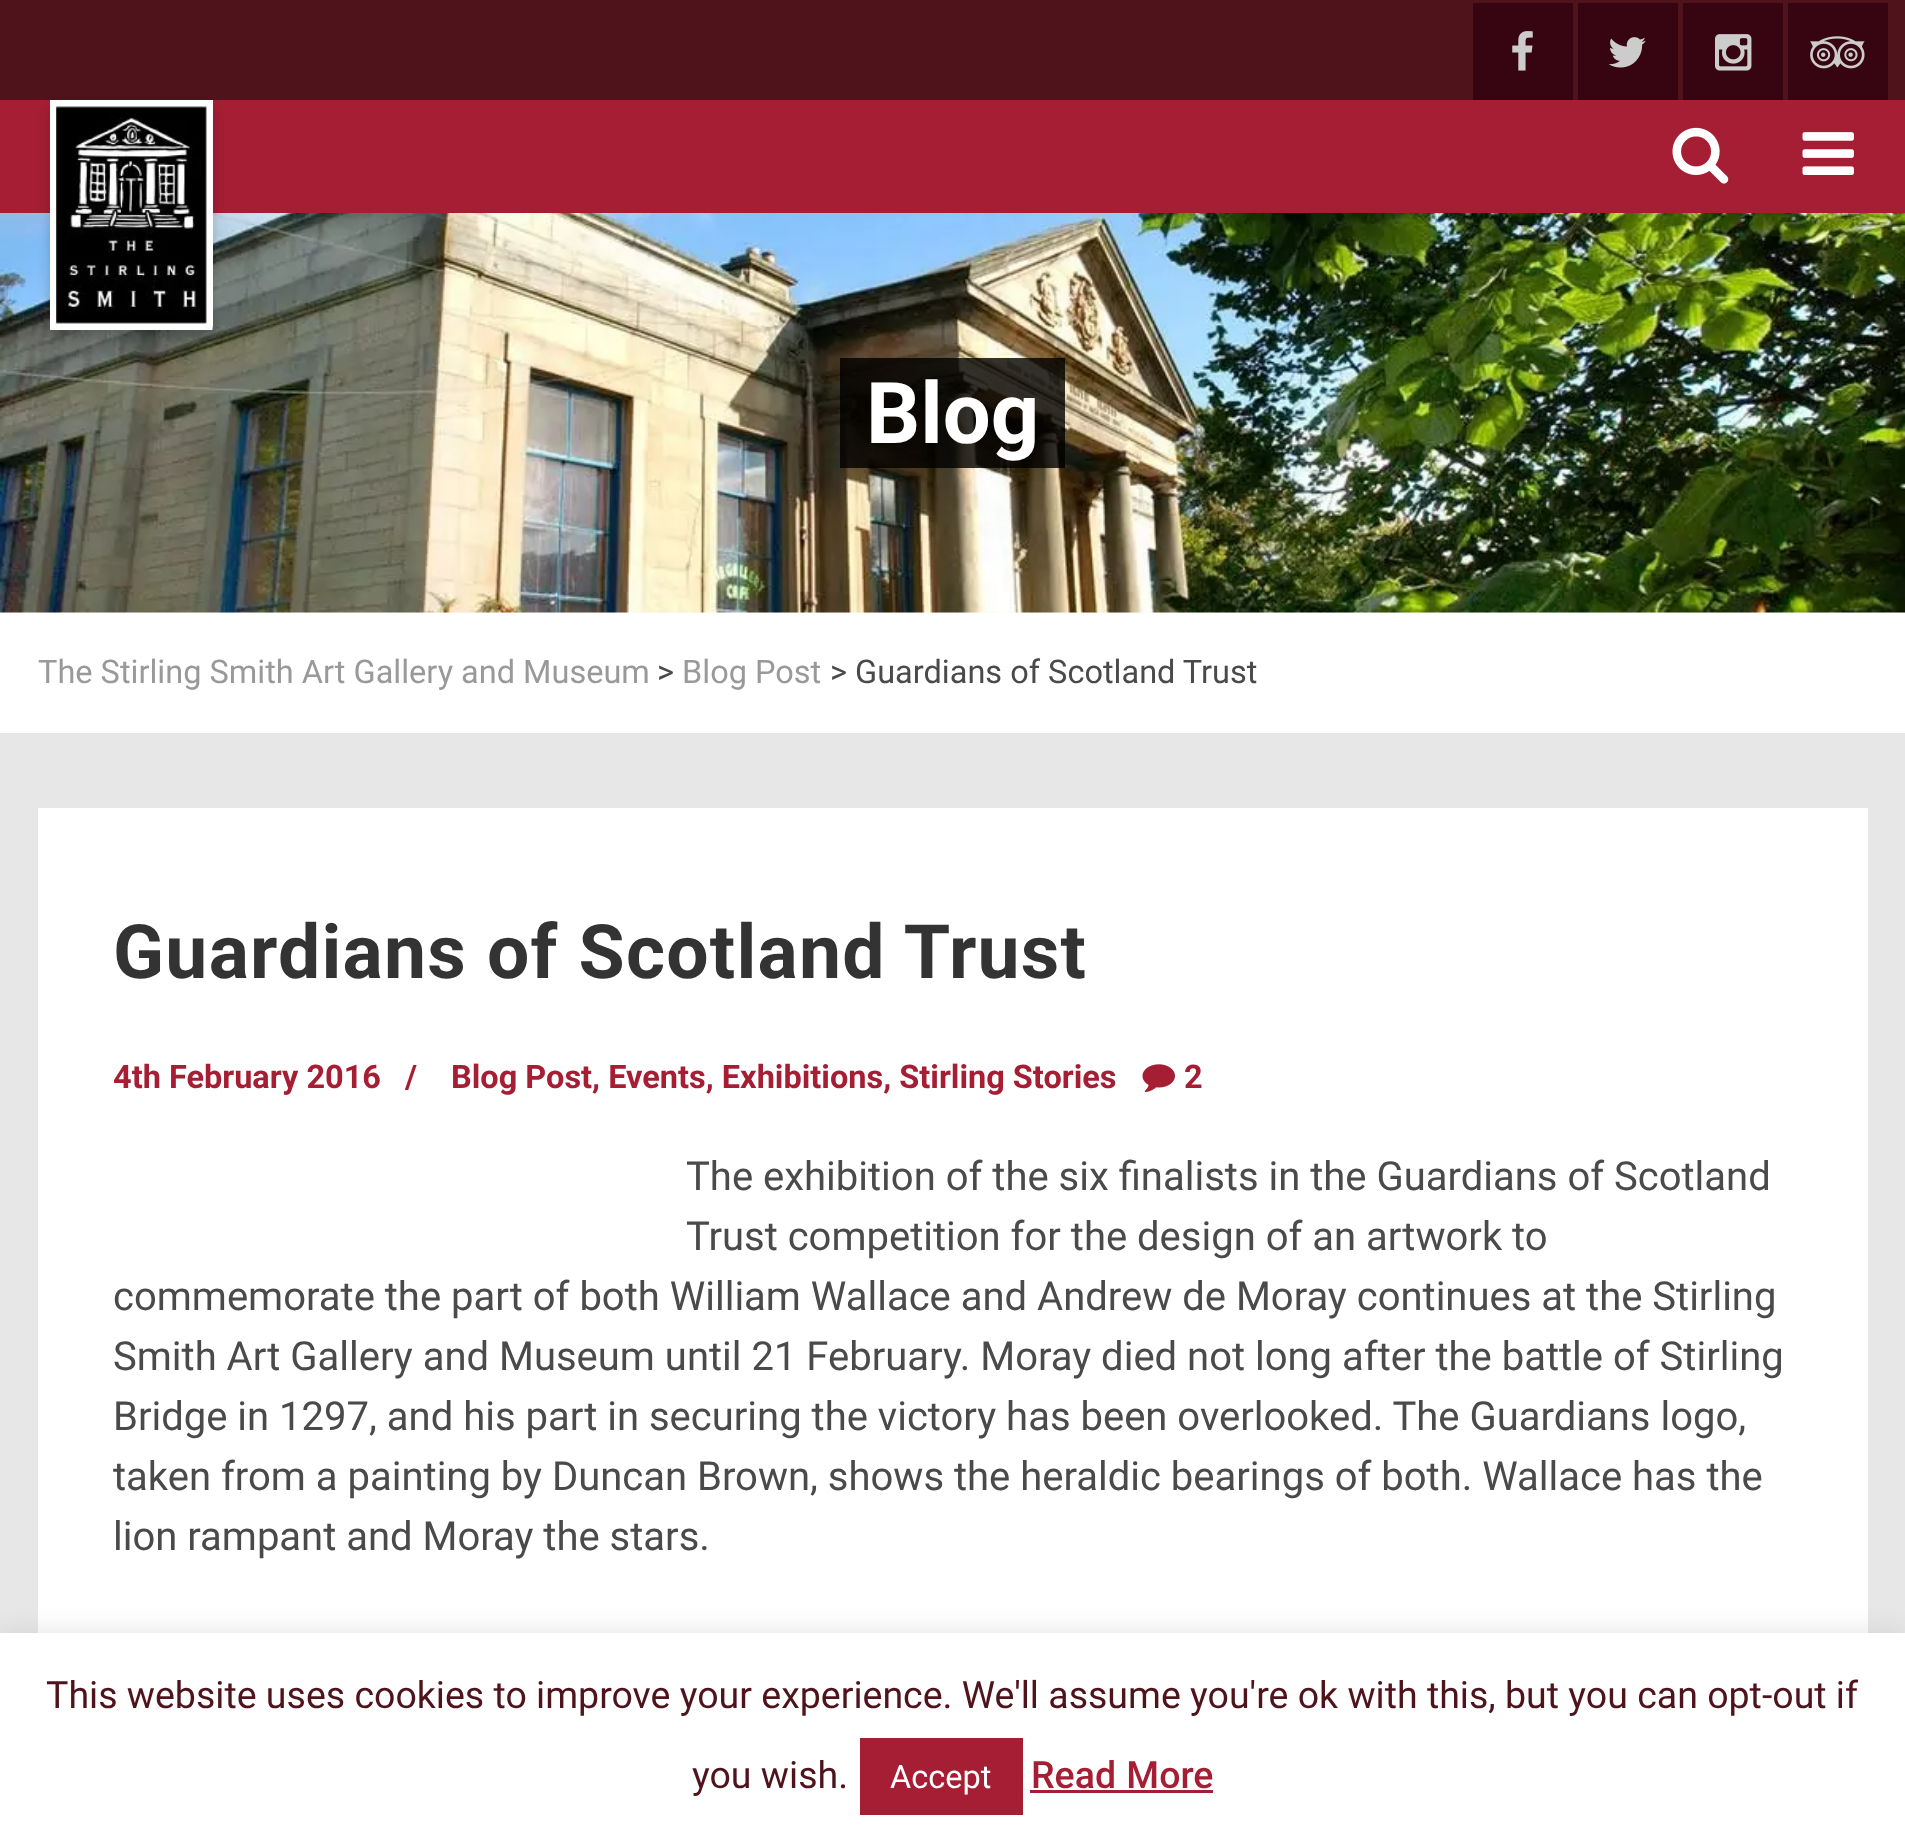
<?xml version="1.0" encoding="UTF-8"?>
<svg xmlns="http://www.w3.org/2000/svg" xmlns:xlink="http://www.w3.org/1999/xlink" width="1905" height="1844">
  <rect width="100%" height="100%" fill="#e7e7e7" />
  <rect width="1905" height="100" fill="#4f131c" />
  <rect x="1473" y="3" width="100" height="97" fill="#370511" />
  <image x="1512" y="31" width="21" height="40" xlink:href="image1.png" />
  <rect x="1578" y="3" width="100" height="97" fill="#370511" />
  <image x="1608" y="37" width="38" height="31" xlink:href="image2.png" />
  <rect x="1683" y="3" width="100" height="97" fill="#370511" />
  <image x="1715" y="34" width="37" height="37" xlink:href="image3.png" />
  <rect x="1788" y="3" width="100" height="97" fill="#370511" />
  <image x="1810" y="36" width="55" height="33" xlink:href="image4.png" />
  <rect y="100" width="1905" height="113" fill="#a51e33" />
  <rect y="612" width="1905" height="1" fill="#f8f8f8" />
  <image x="0" y="213" width="1905" height="400" xlink:href="image8.png" />
  <rect x="50" y="108" width="163" height="230" rx="5" fill="#000000" fill-opacity="0.2" filter="blur(6px)" />
  <path d="M 50 100 h 163 v 225 c 0 3 -2 5 -5 5 h -153 c -3 0 -5 -2 -5 -5 z" fill="#ffffff" />
  <image x="50" y="100" width="163" height="230" xlink:href="image5.png" />
  <image x="1672" y="127" width="57" height="57" xlink:href="image6.png" />
  <image x="1802" y="132" width="52" height="43" xlink:href="image7.png" />
  <rect x="840" y="358" width="225" height="110" fill="#000000" fill-opacity="0.8" />
  <rect y="613" width="1905" height="120" fill="#ffffff" />
  <rect x="38" y="808" width="1830" height="825" fill="#ffffff" />
  <image x="1142" y="1064" width="33" height="29" xlink:href="image9.png" />
  <rect y="1630" width="1905" height="213" fill="#acabab" fill-opacity="0.3" filter="blur(12.5px)" />
  <rect y="1633" width="1905" height="211" fill="#ffffff" />
  <rect x="860" y="1738" width="163" height="77" fill="#a51e33" />
  <rect x="1030" y="1790" width="183" height="3" fill="#a51e33" />
  <text x="866" y="443" style="font-family: Roboto; font-size: 85px; font-weight: bold; fill: #ffffff">Blog</text>
  <text x="38" y="683" style="font-family: Roboto; font-size: 32.5px; fill: #999999">The Stirling Smith Art Gallery and Museum</text>
  <text x="657" y="683" style="font-family: Roboto; font-size: 32.5px; fill: #4a4a4a">&gt;</text>
  <text x="682" y="683" style="font-family: Roboto; font-size: 32.5px; fill: #999999">Blog Post</text>
  <text x="830" y="683" style="font-family: Roboto; font-size: 32.5px; fill: #4a4a4a">&gt; Guardians of Scotland Trust</text>
  <text x="113" y="978" style="font-family: Roboto; font-size: 75px; font-weight: bold; letter-spacing: 1.25px; fill: #333333">Guardians of Scotland Trust</text>
  <text x="113" y="1088" style="font-family: Roboto; font-size: 32.5px; font-weight: bold; fill: #a51e33">4th February 2016</text>
  <text x="405" y="1088" style="font-family: Roboto; font-size: 32.5px; font-weight: bold; fill: #a51e33">/</text>
  <text x="451" y="1088" style="font-family: Roboto; font-size: 32.5px; font-weight: bold; fill: #a51e33">Blog Post, Events, Exhibitions, Stirling Stories</text>
  <text x="1184" y="1088" style="font-family: Roboto; font-size: 32.5px; font-weight: bold; fill: #a51e33">2</text>
  <text x="686" y="1190" style="font-family: Roboto; font-size: 40px; fill: #4a4a4a">The exhibition of the six finalists in the Guardians of Scotland</text>
  <text x="686" y="1250" style="font-family: Roboto; font-size: 40px; fill: #4a4a4a">Trust competition for the design of an artwork to</text>
  <text x="113" y="1310" style="font-family: Roboto; font-size: 40px; fill: #4a4a4a">commemorate the part of both William Wallace and Andrew de Moray continues at the Stirling</text>
  <text x="113" y="1370" style="font-family: Roboto; font-size: 40px; fill: #4a4a4a">Smith Art Gallery and Museum until 21 February. Moray died not long after the battle of Stirling</text>
  <text x="113" y="1430" style="font-family: Roboto; font-size: 40px; fill: #4a4a4a">Bridge in 1297, and his part in securing the victory has been overlooked. The Guardians logo,</text>
  <text x="113" y="1490" style="font-family: Roboto; font-size: 40px; fill: #4a4a4a">taken from a painting by Duncan Brown, shows the heraldic bearings of both. Wallace has the</text>
  <text x="113" y="1550" style="font-family: Roboto; font-size: 40px; fill: #4a4a4a">lion rampant and Moray the stars.</text>
  <text x="46" y="1708" style="font-family: Roboto; font-size: 37.5px; fill: #4f131c">This website uses cookies to improve your experience. We'll assume you're ok with this, but you can opt-out if</text>
  <text x="692" y="1788" style="font-family: Roboto; font-size: 37.5px; fill: #4f131c">you wish.</text>
  <text x="890" y="1788" style="font-family: Roboto; font-size: 32.5px; fill: #ffffff">Accept</text>
  <text x="1031" y="1788" word-spacing="1" style="font-family: Roboto; font-size: 37.5px; font-weight: 500; fill: #a51e33">Read More</text>
</svg>
